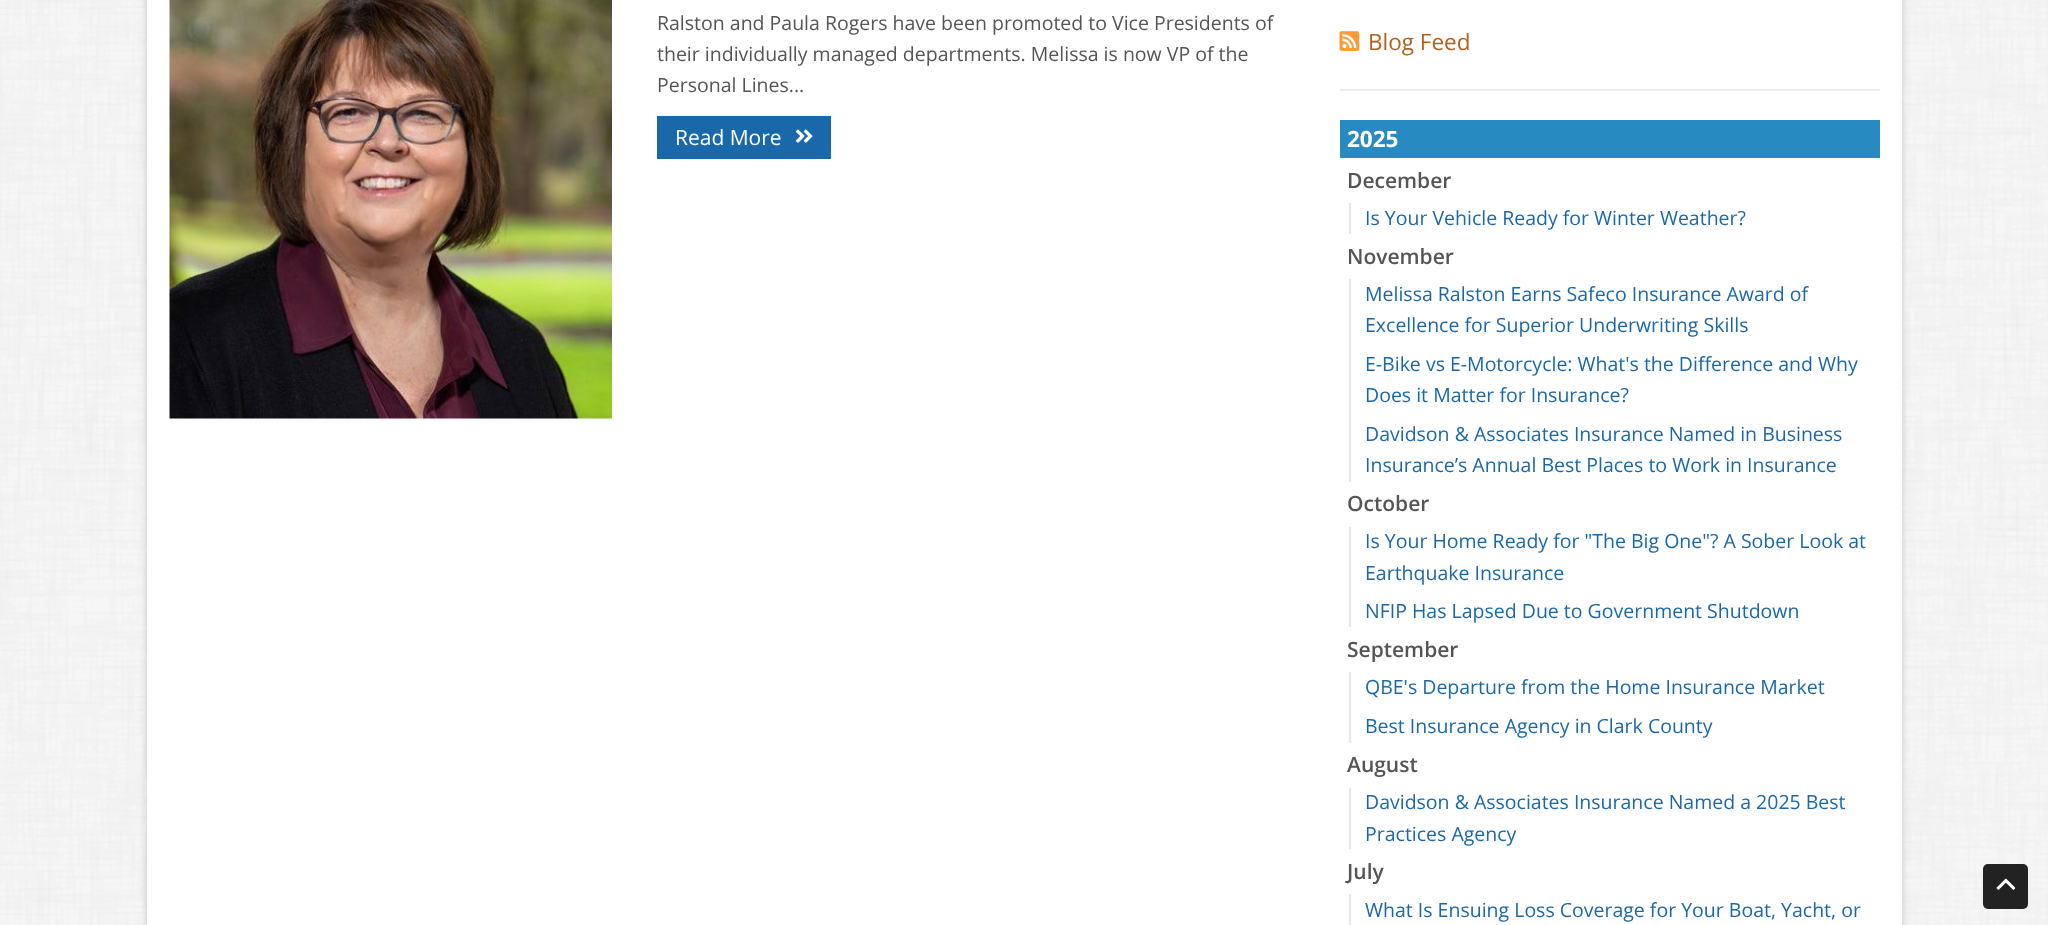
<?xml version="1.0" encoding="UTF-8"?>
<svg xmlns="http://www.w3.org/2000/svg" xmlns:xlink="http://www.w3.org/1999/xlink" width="2048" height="925">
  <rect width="100%" height="100%" fill="#ffffff" />
  <image x="0" y="0" width="2048" height="925" xlink:href="image1.png" />
  <rect x="147" y="-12" width="1755" height="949" fill="#000000" fill-opacity="0.16" filter="blur(4px)" />
  <rect x="147" width="1755" height="925" fill="#ffffff" />
  <image x="169" y="0" width="443" height="419" xlink:href="image2.png" />
  <rect x="657" y="116" width="174" height="43" fill="#1969aa" />
  <image x="796" y="129" width="17" height="14" xlink:href="image3.png" />
  <image x="1339" y="31" width="21" height="20" xlink:href="image4.png" />
  <rect x="1340" y="89" width="540" height="2" fill="#eeeeee" />
  <rect x="1340" y="120" width="540" height="38" fill="#278bc1" />
  <rect x="1349" y="203" width="2" height="31" fill="#e6e6e6" />
  <rect x="1349" y="279" width="2" height="203" fill="#e6e6e6" />
  <rect x="1349" y="527" width="2" height="100" fill="#e6e6e6" />
  <rect x="1349" y="672" width="2" height="71" fill="#e6e6e6" />
  <rect x="1349" y="788" width="2" height="61" fill="#e6e6e6" />
  <rect x="1349" y="894" width="2" height="31" fill="#e6e6e6" />
  <rect x="1983" y="864" width="45" height="45" rx="5" fill="#222222" />
  <image x="1996" y="878" width="20" height="12" xlink:href="image5.png" />
  <text x="657" y="30" style="font-family: Open Sans; font-size: 19.5px; fill: #555555">Ralston and Paula Rogers have been promoted to Vice Presidents of</text>
  <text x="657" y="61" style="font-family: Open Sans; font-size: 19.5px; fill: #555555">their individually managed departments. Melissa is now VP of the</text>
  <text x="657" y="92" style="font-family: Open Sans; font-size: 19.5px; fill: #555555">Personal Lines...</text>
  <text x="675" y="145" style="font-family: Open Sans; font-size: 21px; fill: #ffffff">Read More</text>
  <text x="1368" y="50" style="font-family: Open Sans; font-size: 22.5px; fill: #b2621f">Blog Feed</text>
  <text x="1347" y="147" style="font-family: Open Sans; font-size: 22.5px; font-weight: bold; fill: #ffffff">2025</text>
  <text x="1347" y="188" style="font-family: Open Sans; font-size: 21px; font-weight: 600; fill: #555555">December</text>
  <text x="1365" y="225" style="font-family: Open Sans; font-size: 19.5px; fill: #1969aa">Is Your Vehicle Ready for Winter Weather?</text>
  <text x="1347" y="264" style="font-family: Open Sans; font-size: 21px; font-weight: 600; fill: #555555">November</text>
  <text x="1365" y="301" style="font-family: Open Sans; font-size: 19.5px; fill: #1969aa">Melissa Ralston Earns Safeco Insurance Award of</text>
  <text x="1365" y="332" style="font-family: Open Sans; font-size: 19.5px; fill: #1969aa">Excellence for Superior Underwriting Skills</text>
  <text x="1365" y="371" style="font-family: Open Sans; font-size: 19.5px; fill: #1969aa">E-Bike vs E-Motorcycle: What's the Difference and Why</text>
  <text x="1365" y="402" style="font-family: Open Sans; font-size: 19.5px; fill: #1969aa">Does it Matter for Insurance?</text>
  <text x="1365" y="441" style="font-family: Open Sans; font-size: 19.5px; fill: #1969aa">Davidson &amp; Associates Insurance Named in Business</text>
  <text x="1365" y="472" style="font-family: Open Sans; font-size: 19.5px; fill: #1969aa">Insurance’s Annual Best Places to Work in Insurance</text>
  <text x="1347" y="511" style="font-family: Open Sans; font-size: 21px; font-weight: 600; fill: #555555">October</text>
  <text x="1365" y="548" style="font-family: Open Sans; font-size: 19.5px; fill: #1969aa">Is Your Home Ready for "The Big One"? A Sober Look at</text>
  <text x="1365" y="580" style="font-family: Open Sans; font-size: 19.5px; fill: #1969aa">Earthquake Insurance</text>
  <text x="1365" y="618" style="font-family: Open Sans; font-size: 19.5px; fill: #1969aa">NFIP Has Lapsed Due to Government Shutdown</text>
  <text x="1347" y="657" style="font-family: Open Sans; font-size: 21px; font-weight: 600; fill: #555555">September</text>
  <text x="1365" y="694" style="font-family: Open Sans; font-size: 19.5px; fill: #1969aa">QBE's Departure from the Home Insurance Market</text>
  <text x="1365" y="733" style="font-family: Open Sans; font-size: 19.5px; fill: #1969aa">Best Insurance Agency in Clark County</text>
  <text x="1347" y="772" style="font-family: Open Sans; font-size: 21px; font-weight: 600; fill: #555555">August</text>
  <text x="1365" y="809" style="font-family: Open Sans; font-size: 19.5px; fill: #1969aa">Davidson &amp; Associates Insurance Named a 2025 Best</text>
  <text x="1365" y="841" style="font-family: Open Sans; font-size: 19.5px; fill: #1969aa">Practices Agency</text>
  <text x="1347" y="879" style="font-family: Open Sans; font-size: 21px; font-weight: 600; fill: #555555">July</text>
  <text x="1365" y="917" style="font-family: Open Sans; font-size: 19.5px; fill: #1969aa">What Is Ensuing Loss Coverage for Your Boat, Yacht, or</text>
</svg>
